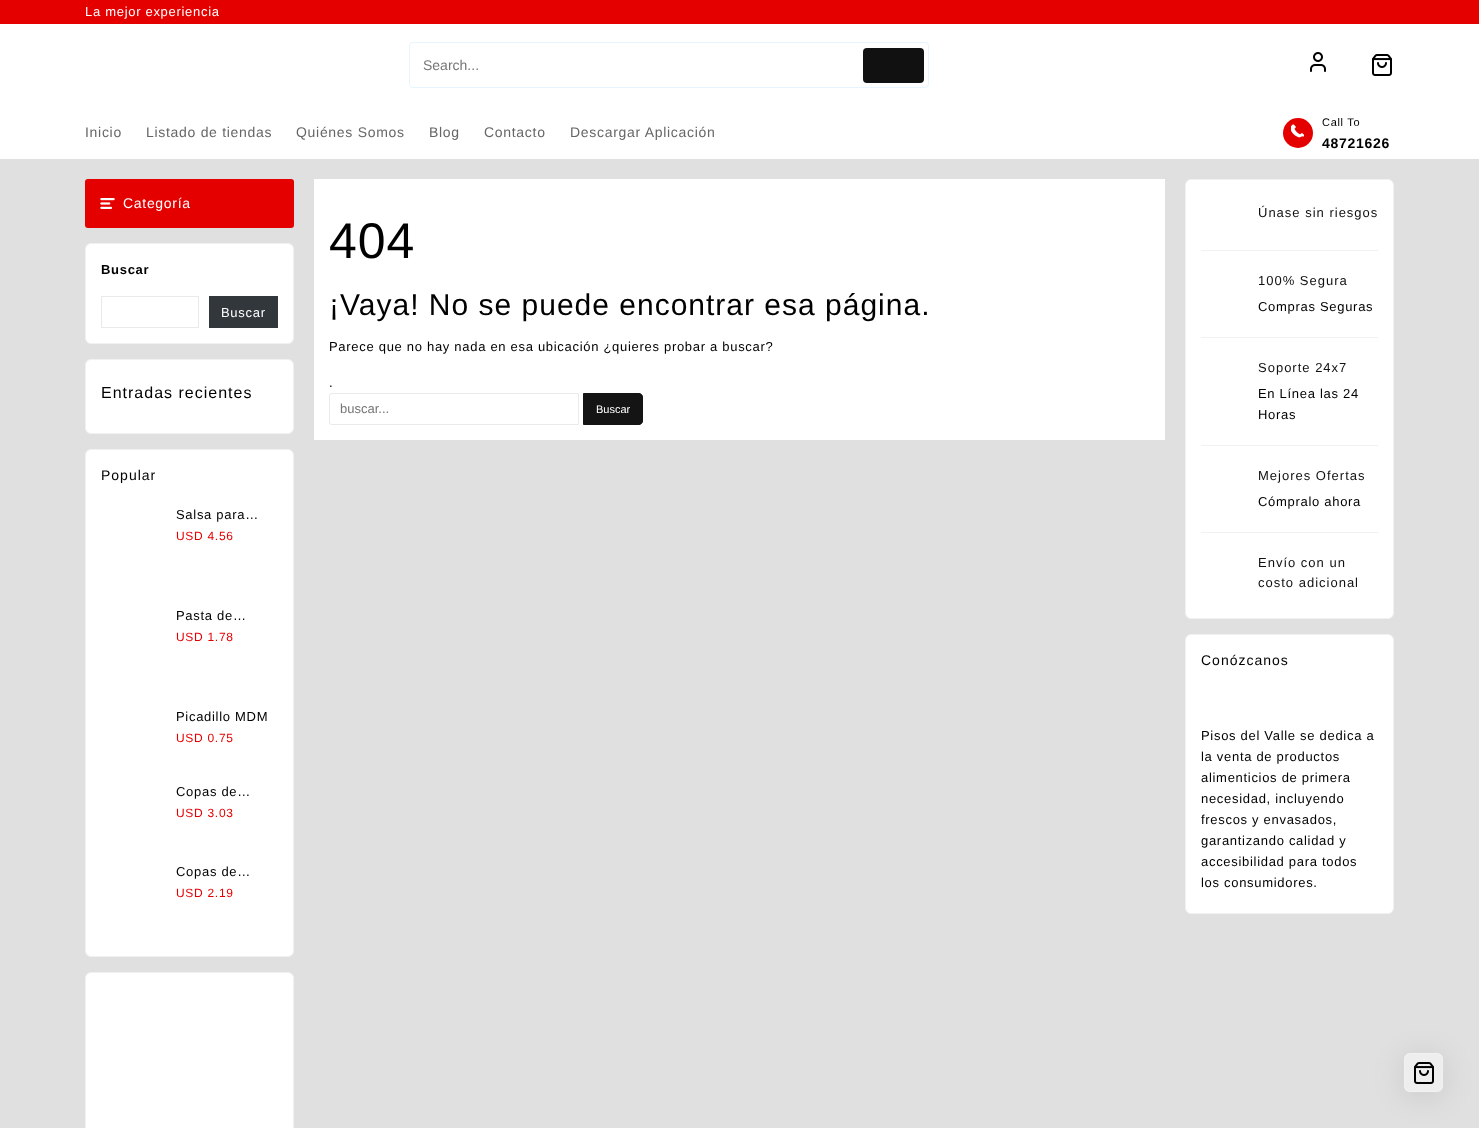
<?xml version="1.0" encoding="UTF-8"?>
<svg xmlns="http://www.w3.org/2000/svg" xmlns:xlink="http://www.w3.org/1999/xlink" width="1479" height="1128">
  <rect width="100%" height="100%" fill="#e0e0e0" />
  <rect width="1479" height="24" fill="#e50000" />
  <rect y="24" width="1479" height="135" fill="#ffffff" />
  <rect x="409.5" y="42.5" width="519" height="45" rx="3.5" fill="none" stroke="#e7f5ff" />
  <rect x="863" y="48" width="61" height="35" rx="4" fill="#111111" />
  <image x="1310" y="52" width="16" height="20" xlink:href="image1.png" />
  <image x="1372" y="54" width="20" height="22" xlink:href="image2.png" />
  <circle cx="1298" cy="133" r="15" fill="#e50000" />
  <image x="1291" y="124" width="13" height="14" xlink:href="image3.png" />
  <rect x="85" y="179" width="209" height="49" rx="3" fill="#e50000" />
  <image x="100" y="198" width="15" height="11" xlink:href="image4.png" />
  <rect x="85.5" y="243.5" width="208" height="100" rx="5.5" fill="#ffffff" stroke="#f1f1f1" />
  <rect x="101.5" y="296.5" width="97" height="31" fill="none" stroke="#eaeaea" />
  <rect x="209" y="296" width="69" height="32" fill="#32373c" />
  <rect x="85.5" y="359.5" width="208" height="74" rx="5.5" fill="#ffffff" stroke="#f1f1f1" />
  <rect x="85.5" y="449.5" width="208" height="507" rx="5.5" fill="#ffffff" stroke="#f1f1f1" />
  <rect x="85.5" y="972.5" width="208" height="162" rx="5.5" fill="#ffffff" stroke="#f1f1f1" />
  <rect x="314" y="179" width="851" height="261" fill="#ffffff" />
  <path d="M 332 393.5 h 246.5 v 31 h -246.5 c -1.5 0 -2.5 -1 -2.5 -2.5 v -26 c 0 -1.5 1 -2.5 2.5 -2.5 z" fill="none" stroke="#eaeaea" />
  <path d="M 583.5 393.5 h 55.5 c 2 0 3.5 1.5 3.5 3.5 v 24 c 0 2 -1.5 3.5 -3.5 3.5 h -55.5 z" fill="#141415" stroke="#141415" />
  <rect x="1185.5" y="179.5" width="208" height="439" rx="5.5" fill="#ffffff" stroke="#f1f1f1" />
  <rect x="1201" y="250" width="177" height="1" fill="#f1f1f1" />
  <rect x="1201" y="337" width="177" height="1" fill="#f1f1f1" />
  <rect x="1201" y="445" width="177" height="1" fill="#f1f1f1" />
  <rect x="1201" y="532" width="177" height="1" fill="#f1f1f1" />
  <rect x="1185.5" y="634.5" width="208" height="279" rx="5.5" fill="#ffffff" stroke="#f1f1f1" />
  <rect x="1404" y="1057" width="39" height="39" rx="6" fill="#000000" fill-opacity="0.1" filter="blur(15px)" />
  <rect x="1404" y="1053" width="39" height="39" rx="6" fill="#eeeeee" />
  <rect x="1404.5" y="1053.5" width="38" height="38" rx="5.5" fill="none" stroke="#ffffff" stroke-opacity="0.27" />
  <image x="1414" y="1062" width="20" height="22" xlink:href="image5.png" />
  <text x="85" y="16" style="font-family: Liberation Sans; font-size: 13px; letter-spacing: 0.7px; fill: #ffffff">La mejor experiencia</text>
  <text x="423" y="70" style="font-family: Liberation Sans; font-size: 14px; fill: #757575">Search...</text>
  <text x="85" y="137" style="font-family: Liberation Sans; font-size: 14px; letter-spacing: 0.7px; fill: #666666">Inicio</text>
  <text x="146" y="137" style="font-family: Liberation Sans; font-size: 14px; letter-spacing: 0.7px; fill: #666666">Listado de tiendas</text>
  <text x="296" y="137" style="font-family: Liberation Sans; font-size: 14px; letter-spacing: 0.7px; fill: #666666">Quiénes Somos</text>
  <text x="429" y="137" style="font-family: Liberation Sans; font-size: 14px; letter-spacing: 0.7px; fill: #666666">Blog</text>
  <text x="484" y="137" style="font-family: Liberation Sans; font-size: 14px; letter-spacing: 0.7px; fill: #666666">Contacto</text>
  <text x="570" y="137" style="font-family: Liberation Sans; font-size: 14px; letter-spacing: 0.7px; fill: #666666">Descargar Aplicación</text>
  <text x="1322" y="126" style="font-family: Liberation Sans; font-size: 11px; letter-spacing: 0.7px; fill: #000000">Call To</text>
  <text x="1322" y="148" style="font-family: Liberation Sans; font-size: 14px; font-weight: bold; letter-spacing: 0.7px; fill: #000000">48721626</text>
  <text x="123" y="208" style="font-family: Liberation Sans; font-size: 14px; letter-spacing: 0.7px; fill: #ffffff">Categoría</text>
  <text x="101" y="274" style="font-family: Liberation Sans; font-size: 13px; font-weight: bold; letter-spacing: 0.7px; fill: #000000">Buscar</text>
  <text x="221" y="317" style="font-family: Liberation Sans; font-size: 13px; letter-spacing: 0.7px; fill: #ffffff">Buscar</text>
  <text x="101" y="398" style="font-family: Liberation Sans; font-size: 16px; letter-spacing: 1px; fill: #000000">Entradas recientes</text>
  <text x="101" y="480" style="font-family: Liberation Sans; font-size: 14px; letter-spacing: 1px; fill: #000000">Popular</text>
  <text x="176" y="519" style="font-family: Liberation Sans; font-size: 13px; letter-spacing: 0.7px; fill: #000000">Salsa para…</text>
  <text x="176" y="540" style="font-family: Liberation Sans; font-size: 12px; letter-spacing: 0.7px; fill: #e50000">USD 4.56</text>
  <text x="176" y="620" style="font-family: Liberation Sans; font-size: 13px; letter-spacing: 0.7px; fill: #000000">Pasta de…</text>
  <text x="176" y="641" style="font-family: Liberation Sans; font-size: 12px; letter-spacing: 0.7px; fill: #e50000">USD 1.78</text>
  <text x="176" y="721" style="font-family: Liberation Sans; font-size: 13px; letter-spacing: 0.7px; fill: #000000">Picadillo MDM</text>
  <text x="176" y="742" style="font-family: Liberation Sans; font-size: 12px; letter-spacing: 0.7px; fill: #e50000">USD 0.75</text>
  <text x="176" y="796" style="font-family: Liberation Sans; font-size: 13px; letter-spacing: 0.7px; fill: #000000">Copas de…</text>
  <text x="176" y="817" style="font-family: Liberation Sans; font-size: 12px; letter-spacing: 0.7px; fill: #e50000">USD 3.03</text>
  <text x="176" y="876" style="font-family: Liberation Sans; font-size: 13px; letter-spacing: 0.7px; fill: #000000">Copas de…</text>
  <text x="176" y="897" style="font-family: Liberation Sans; font-size: 12px; letter-spacing: 0.7px; fill: #e50000">USD 2.19</text>
  <text x="329" y="258" style="font-family: Liberation Sans; font-size: 50px; letter-spacing: 1px; fill: #000000">404</text>
  <text x="329" y="315" style="font-family: Liberation Sans; font-size: 30px; letter-spacing: 1px; fill: #000000">¡Vaya! No se puede encontrar esa página.</text>
  <text x="329" y="351" style="font-family: Liberation Sans; font-size: 13px; letter-spacing: 0.7px; fill: #000000">Parece que no hay nada en esa ubicación ¿quieres probar a buscar?</text>
  <text x="329" y="387" style="font-family: Liberation Sans; font-size: 13px; letter-spacing: 0.7px; fill: #000000">.</text>
  <text x="340" y="413" style="font-family: Liberation Sans; font-size: 13px; fill: #757575">buscar...</text>
  <text x="596" y="413" style="font-family: Liberation Sans; font-size: 11px; fill: #ffffff">Buscar</text>
  <text x="1258" y="217" style="font-family: Liberation Sans; font-size: 13px; letter-spacing: 1px; fill: #111111">Únase sin riesgos</text>
  <text x="1258" y="285" style="font-family: Liberation Sans; font-size: 13px; letter-spacing: 1px; fill: #111111">100% Segura</text>
  <text x="1258" y="311" style="font-family: Liberation Sans; font-size: 13px; letter-spacing: 0.7px; fill: #000000">Compras Seguras</text>
  <text x="1258" y="372" style="font-family: Liberation Sans; font-size: 13px; letter-spacing: 1px; fill: #111111">Soporte 24x7</text>
  <text x="1258" y="398" style="font-family: Liberation Sans; font-size: 13px; letter-spacing: 0.7px; fill: #000000">En Línea las 24</text>
  <text x="1258" y="419" style="font-family: Liberation Sans; font-size: 13px; letter-spacing: 0.7px; fill: #000000">Horas</text>
  <text x="1258" y="480" style="font-family: Liberation Sans; font-size: 13px; letter-spacing: 1px; fill: #111111">Mejores Ofertas</text>
  <text x="1258" y="506" style="font-family: Liberation Sans; font-size: 13px; letter-spacing: 0.7px; fill: #000000">Cómpralo ahora</text>
  <text x="1258" y="567" style="font-family: Liberation Sans; font-size: 13px; letter-spacing: 1px; fill: #111111">Envío con un</text>
  <text x="1258" y="587" style="font-family: Liberation Sans; font-size: 13px; letter-spacing: 1px; fill: #111111">costo adicional</text>
  <text x="1201" y="665" style="font-family: Liberation Sans; font-size: 14px; letter-spacing: 1px; fill: #000000">Conózcanos</text>
  <text x="1201" y="740" style="font-family: Liberation Sans; font-size: 13px; letter-spacing: 0.7px; fill: #000000">Pisos del Valle se dedica a</text>
  <text x="1201" y="761" style="font-family: Liberation Sans; font-size: 13px; letter-spacing: 0.7px; fill: #000000">la venta de productos</text>
  <text x="1201" y="782" style="font-family: Liberation Sans; font-size: 13px; letter-spacing: 0.7px; fill: #000000">alimenticios de primera</text>
  <text x="1201" y="803" style="font-family: Liberation Sans; font-size: 13px; letter-spacing: 0.7px; fill: #000000">necesidad, incluyendo</text>
  <text x="1201" y="824" style="font-family: Liberation Sans; font-size: 13px; letter-spacing: 0.7px; fill: #000000">frescos y envasados,</text>
  <text x="1201" y="845" style="font-family: Liberation Sans; font-size: 13px; letter-spacing: 0.7px; fill: #000000">garantizando calidad y</text>
  <text x="1201" y="866" style="font-family: Liberation Sans; font-size: 13px; letter-spacing: 0.7px; fill: #000000">accesibilidad para todos</text>
  <text x="1201" y="887" style="font-family: Liberation Sans; font-size: 13px; letter-spacing: 0.7px; fill: #000000">los consumidores.</text>
</svg>
